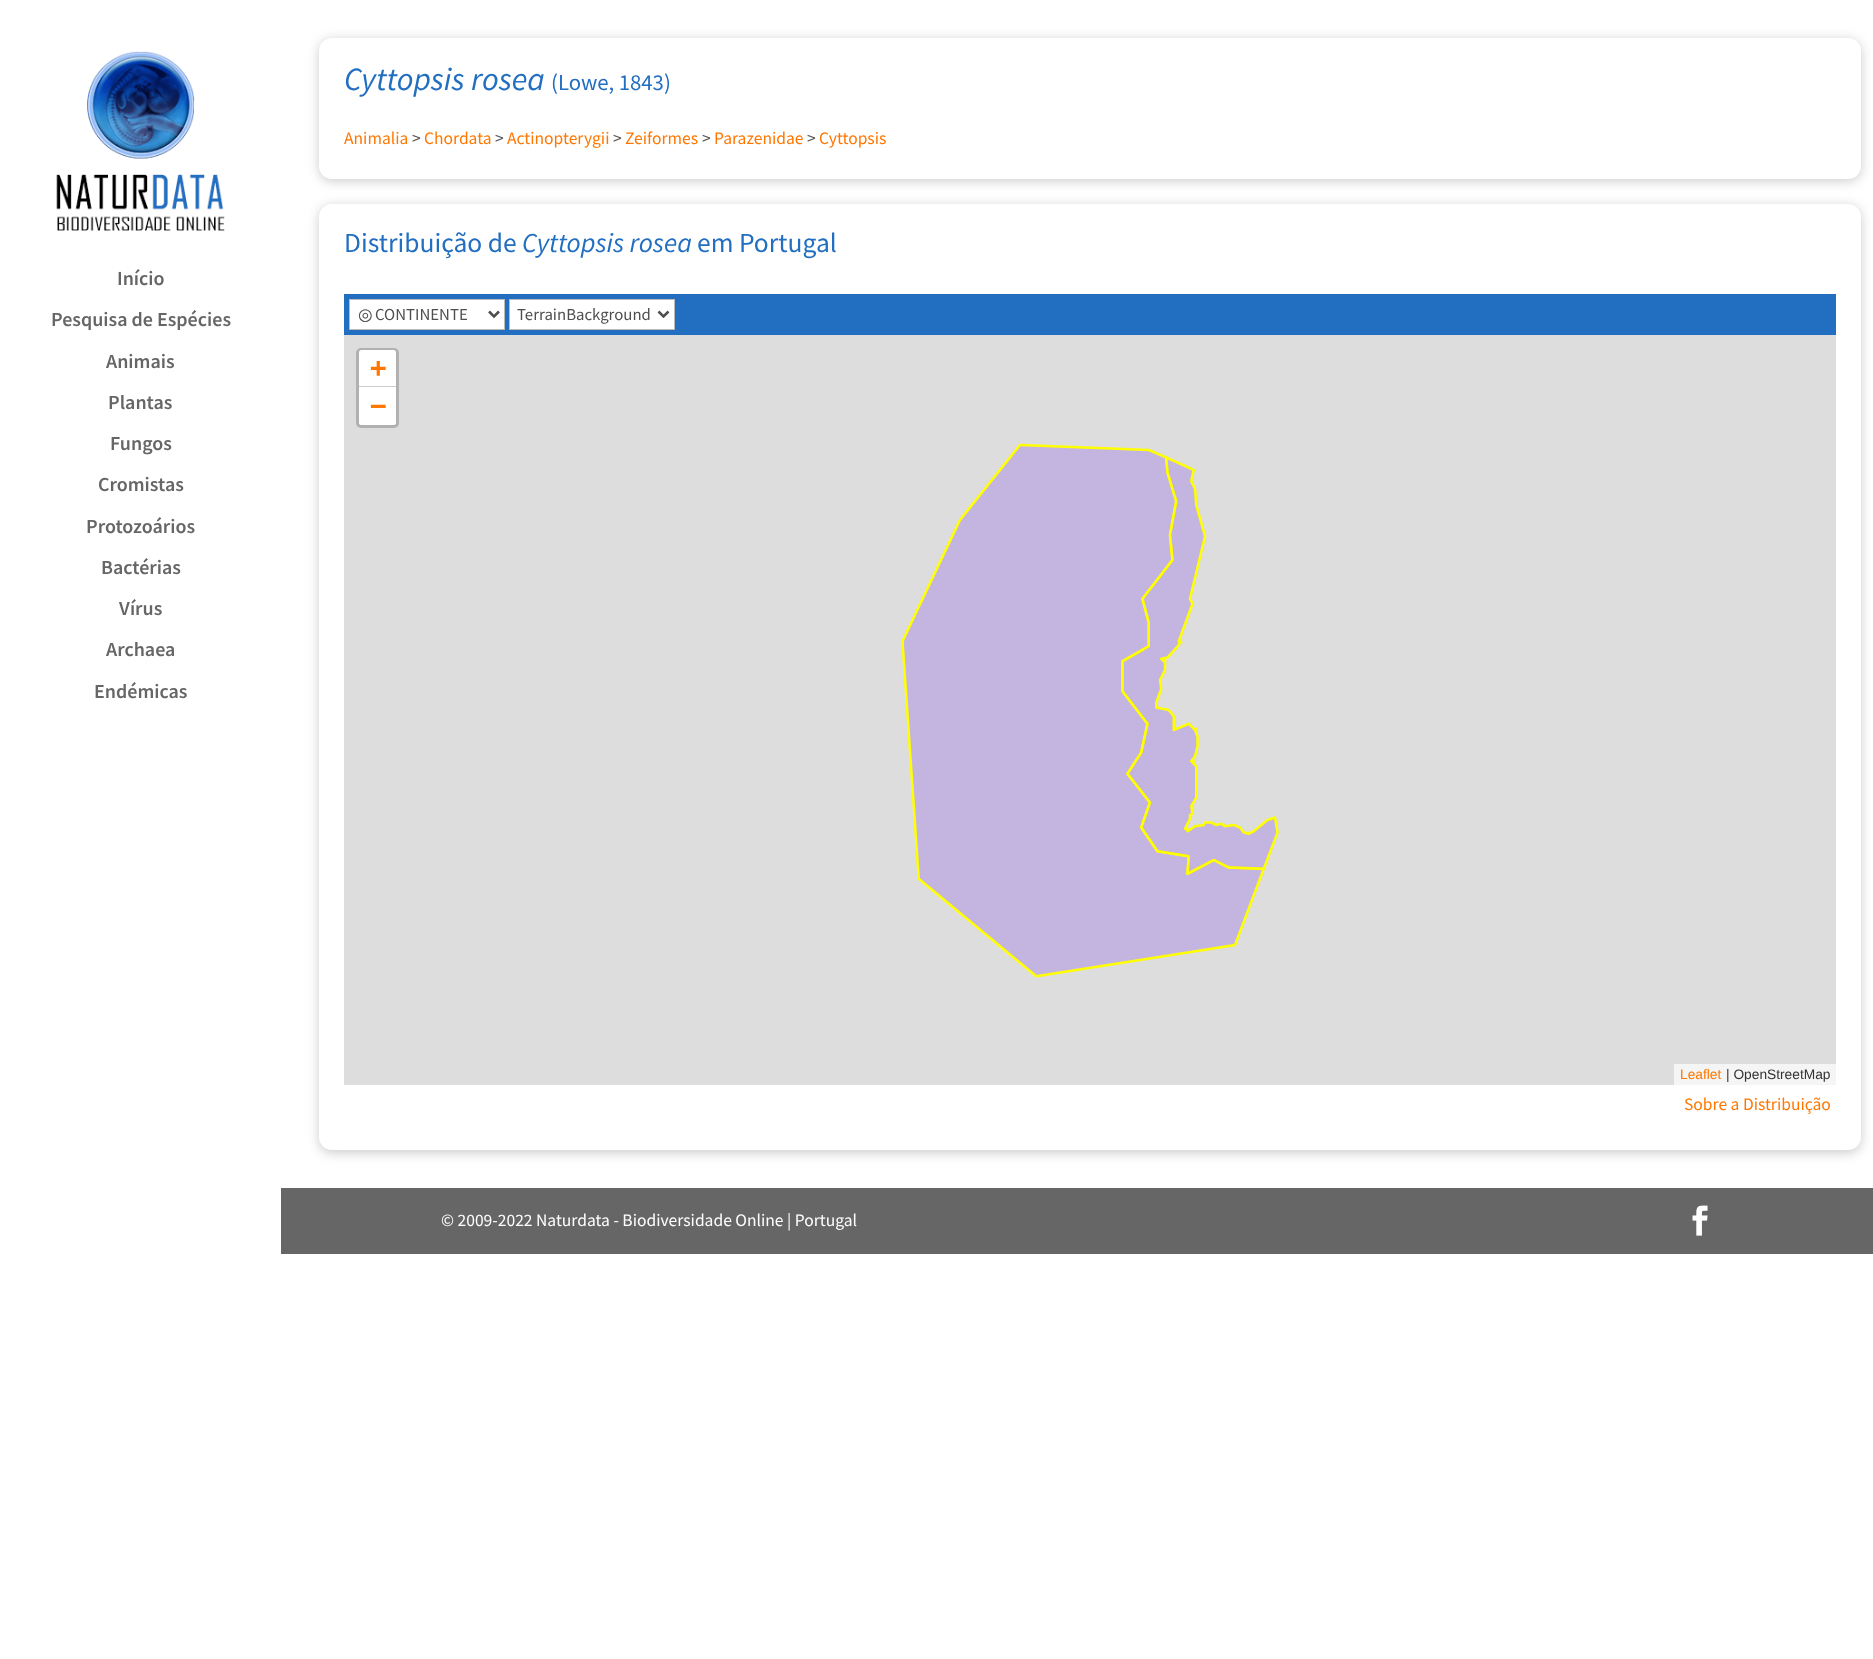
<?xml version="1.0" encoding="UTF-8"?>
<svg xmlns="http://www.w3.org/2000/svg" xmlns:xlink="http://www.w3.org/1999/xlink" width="1873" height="1659">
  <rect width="100%" height="100%" fill="#ffffff" />
  <image x="56" y="51" width="169" height="180" xlink:href="image1.png" />
  <rect x="319" y="40" width="1542" height="141" rx="13" fill="#000000" fill-opacity="0.2" filter="blur(6px)" />
  <rect x="319" y="38" width="1542" height="141" rx="13" fill="#ffffff" />
  <rect x="319" y="206" width="1542" height="947" rx="13" fill="#000000" fill-opacity="0.2" filter="blur(6px)" />
  <rect x="319" y="204" width="1542" height="946" rx="13" fill="#ffffff" />
  <rect x="344" y="294" width="1492" height="41" fill="#226ec0" />
  <rect x="349.5" y="299.5" width="155" height="30" fill="#ffffff" stroke="#bbbbbb" />
  <path d="M 489 311.5 l 5 5 l 5 -5" fill="none" stroke="#4e4e4e" stroke-width="2.5" />
  <rect x="509.5" y="299.5" width="165" height="30" fill="#ffffff" stroke="#bbbbbb" />
  <path d="M 658.5 311.5 l 5 5 l 5 -5" fill="none" stroke="#4e4e4e" stroke-width="2.5" />
  <rect x="344" y="335" width="1492" height="750" fill="#dddddd" />
  <rect x="357.5" y="349.5" width="40" height="77" rx="3.5" fill="none" stroke="#b1b1b1" stroke-width="3" />
  <path d="M 361.5 350 h 32 c 1.5 0 2.5 1 2.5 2.5 v 35.5 h -37 v -35.5 c 0 -1.5 1 -2.5 2.5 -2.5 z" fill="#ffffff" />
  <rect x="359" y="386" width="37" height="1" fill="#cccccc" />
  <path d="M 359 388 h 37 v 34.5 c 0 1.5 -1 2.5 -2.5 2.5 h -32 c -1.5 0 -2.5 -1 -2.5 -2.5 z" fill="#ffffff" />
  <rect x="1674" y="1064" width="162" height="21" fill="#f5f5f5" />
  <image x="901" y="443" width="378" height="535" xlink:href="image2.png" />
  <rect x="281" y="1188" width="1592" height="66" fill="#666666" />
  <image x="1692" y="1205" width="16" height="31" xlink:href="image3.png" />
  <text x="117" y="285" style="font-family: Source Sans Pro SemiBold; font-size: 20px; font-weight: 600; fill: #666666">Início</text>
  <text x="51" y="326" style="font-family: Source Sans Pro SemiBold; font-size: 20px; font-weight: 600; fill: #666666">Pesquisa de Espécies</text>
  <text x="106" y="368" style="font-family: Source Sans Pro SemiBold; font-size: 20px; font-weight: 600; fill: #666666">Animais</text>
  <text x="108" y="409" style="font-family: Source Sans Pro SemiBold; font-size: 20px; font-weight: 600; fill: #666666">Plantas</text>
  <text x="110" y="450" style="font-family: Source Sans Pro SemiBold; font-size: 20px; font-weight: 600; fill: #666666">Fungos</text>
  <text x="98" y="491" style="font-family: Source Sans Pro SemiBold; font-size: 20px; font-weight: 600; fill: #666666">Cromistas</text>
  <text x="86" y="533" style="font-family: Source Sans Pro SemiBold; font-size: 20px; font-weight: 600; fill: #666666">Protozoários</text>
  <text x="101" y="574" style="font-family: Source Sans Pro SemiBold; font-size: 20px; font-weight: 600; fill: #666666">Bactérias</text>
  <text x="119" y="615" style="font-family: Source Sans Pro SemiBold; font-size: 20px; font-weight: 600; fill: #666666">Vírus</text>
  <text x="106" y="656" style="font-family: Source Sans Pro SemiBold; font-size: 20px; font-weight: 600; fill: #666666">Archaea</text>
  <text x="94" y="698" style="font-family: Source Sans Pro SemiBold; font-size: 20px; font-weight: 600; fill: #666666">Endémicas</text>
  <text x="344" y="90" style="font-family: Source Sans Pro; font-size: 32.5px; font-style: italic; fill: #226ec0">Cyttopsis rosea</text>
  <text x="551" y="90" style="font-family: Source Sans Pro; font-size: 22.75px; fill: #226ec0">(Lowe, 1843)</text>
  <text x="344" y="144" style="font-family: Source Sans Pro; font-size: 17.5px; fill: #ff7700">Animalia</text>
  <text x="412" y="144" style="font-family: Source Sans Pro; font-size: 17.5px; fill: #555555">&gt;</text>
  <text x="424" y="144" style="font-family: Source Sans Pro; font-size: 17.5px; fill: #ff7700">Chordata</text>
  <text x="495" y="144" style="font-family: Source Sans Pro; font-size: 17.5px; fill: #555555">&gt;</text>
  <text x="507" y="144" style="font-family: Source Sans Pro; font-size: 17.5px; fill: #ff7700">Actinopterygii</text>
  <text x="613" y="144" style="font-family: Source Sans Pro; font-size: 17.5px; fill: #555555">&gt;</text>
  <text x="625" y="144" style="font-family: Source Sans Pro; font-size: 17.5px; fill: #ff7700">Zeiformes</text>
  <text x="702" y="144" style="font-family: Source Sans Pro; font-size: 17.5px; fill: #555555">&gt;</text>
  <text x="714" y="144" style="font-family: Source Sans Pro; font-size: 17.5px; fill: #ff7700">Parazenidae</text>
  <text x="807" y="144" style="font-family: Source Sans Pro; font-size: 17.5px; fill: #555555">&gt;</text>
  <text x="819" y="144" style="font-family: Source Sans Pro; font-size: 17.5px; fill: #ff7700">Cyttopsis</text>
  <text x="344" y="252" style="font-family: Source Sans Pro; font-size: 27.5px; fill: #226ec0">Distribuição de</text>
  <text x="522" y="252" style="font-family: Source Sans Pro; font-size: 27.5px; font-style: italic; fill: #226ec0">Cyttopsis rosea</text>
  <text x="697" y="252" style="font-family: Source Sans Pro; font-size: 27.5px; fill: #226ec0">em Portugal</text>
  <text x="358" y="320" style="font-family: DejaVu Sans; font-size: 16.75px; fill: #4e4e4e">◎</text>
  <text x="375" y="320" style="font-family: Source Sans Pro; font-size: 16.75px; fill: #4e4e4e">CONTINENTE</text>
  <text x="517" y="320" style="font-family: Source Sans Pro; font-size: 16.75px; fill: #4e4e4e">TerrainBackground</text>
  <text x="370" y="377" style="font-family: DejaVu Sans Mono; font-size: 27.5px; font-weight: bold; fill: #ff7700">+</text>
  <text x="370" y="415" style="font-family: DejaVu Sans Mono; font-size: 27.5px; font-weight: bold; fill: #ff7700">−</text>
  <text x="1680" y="1079" style="font-family: Liberation Sans; font-size: 13.75px; fill: #ff7700">Leaflet</text>
  <text x="1726" y="1079" style="font-family: Liberation Sans; font-size: 13.75px; fill: #333333">| OpenStreetMap</text>
  <text x="1684" y="1110" style="font-family: Source Sans Pro; font-size: 17.5px; fill: #ff7700">Sobre a Distribuição</text>
  <text x="441" y="1226" style="font-family: Source Sans Pro; font-size: 17.5px; fill: #ffffff">© 2009-2022 Naturdata - Biodiversidade Online | Portugal</text>
</svg>
